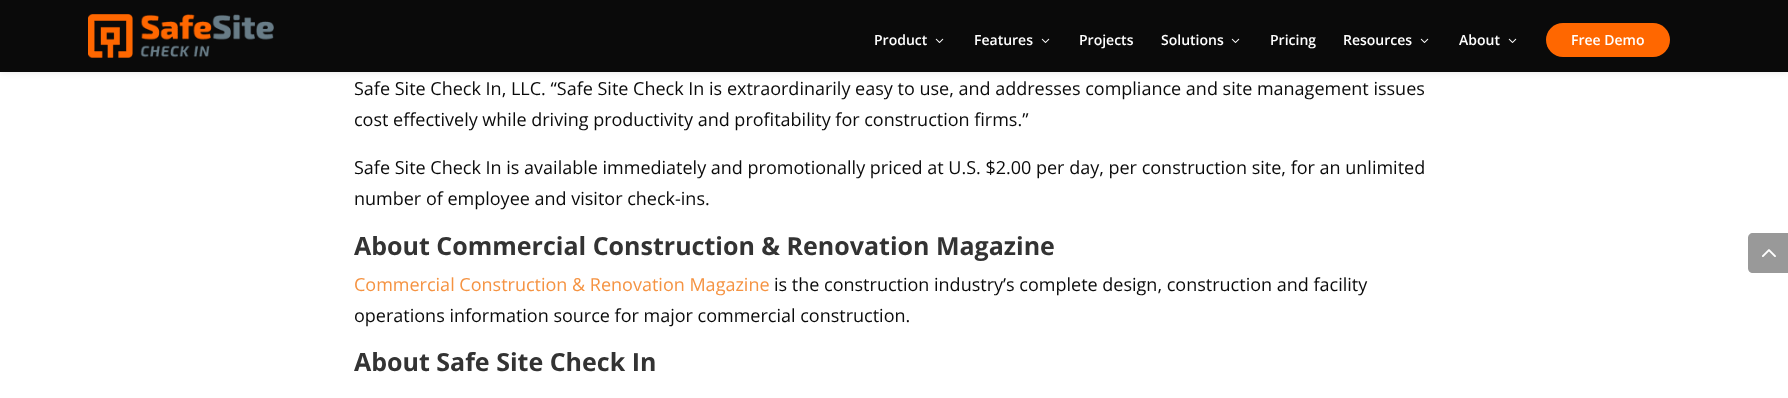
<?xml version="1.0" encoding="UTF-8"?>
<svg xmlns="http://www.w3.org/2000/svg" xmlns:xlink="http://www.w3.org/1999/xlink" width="1788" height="398">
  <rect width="100%" height="100%" fill="#ffffff" />
  <rect width="1788" height="72" fill="#000000" fill-opacity="0.1" filter="blur(3.5px)" />
  <rect width="1788" height="72" fill="#0a0a0a" />
  <image x="88" y="14" width="186" height="44" xlink:href="image1.png" />
  <image x="935" y="38" width="9" height="5" xlink:href="image2.png" />
  <image x="1041" y="38" width="9" height="5" xlink:href="image2.png" />
  <image x="1231" y="38" width="9" height="5" xlink:href="image2.png" />
  <image x="1420" y="38" width="9" height="5" xlink:href="image2.png" />
  <image x="1508" y="38" width="9" height="5" xlink:href="image2.png" />
  <rect x="1546" y="23" width="124" height="34" rx="17" fill="#ff6700" />
  <path d="M 1753 233 h 35 v 40 h -35 c -3 0 -5 -2 -5 -5 v -30 c 0 -3 2 -5 5 -5 z" fill="#999999" />
  <image x="1762" y="249" width="14" height="8" xlink:href="image3.png" />
  <text x="874" y="45" style="font-family: Open Sans; font-size: 14px; font-weight: 600; fill: #ffffff">Product</text>
  <text x="974" y="45" style="font-family: Open Sans; font-size: 14px; font-weight: 600; fill: #ffffff">Features</text>
  <text x="1079" y="45" style="font-family: Open Sans; font-size: 14px; font-weight: 600; fill: #ffffff">Projects</text>
  <text x="1161" y="45" style="font-family: Open Sans; font-size: 14px; font-weight: 600; fill: #ffffff">Solutions</text>
  <text x="1270" y="45" style="font-family: Open Sans; font-size: 14px; font-weight: 600; fill: #ffffff">Pricing</text>
  <text x="1343" y="45" style="font-family: Open Sans; font-size: 14px; font-weight: 600; fill: #ffffff">Resources</text>
  <text x="1459" y="45" style="font-family: Open Sans; font-size: 14px; font-weight: 600; fill: #ffffff">About</text>
  <text x="1571" y="45" style="font-family: Open Sans; font-size: 14px; font-weight: 600; fill: #ffffff">Free Demo</text>
  <text x="354" y="95" style="font-family: Open Sans; font-size: 18px; fill: #0a0a0a">Safe Site Check In, LLC. “Safe Site Check In is extraordinarily easy to use, and addresses compliance and site management issues</text>
  <text x="354" y="126" style="font-family: Open Sans; font-size: 18px; fill: #0a0a0a">cost effectively while driving productivity and profitability for construction firms.”</text>
  <text x="354" y="174" style="font-family: Open Sans; font-size: 18px; fill: #0a0a0a">Safe Site Check In is available immediately and promotionally priced at U.S. $2.00 per day, per construction site, for an unlimited</text>
  <text x="354" y="205" style="font-family: Open Sans; font-size: 18px; fill: #0a0a0a">number of employee and visitor check-ins.</text>
  <text x="354" y="255" style="font-family: Open Sans; font-size: 25px; font-weight: bold; fill: #333333">About Commercial Construction &amp; Renovation Magazine</text>
  <text x="354" y="291" style="font-family: Open Sans; font-size: 18px; fill: #f59342">Commercial Construction &amp; Renovation Magazine</text>
  <text x="774" y="291" style="font-family: Open Sans; font-size: 18px; fill: #0a0a0a">is the construction industry’s complete design, construction and facility</text>
  <text x="354" y="322" style="font-family: Open Sans; font-size: 18px; fill: #0a0a0a">operations information source for major commercial construction.</text>
  <text x="354" y="371" style="font-family: Open Sans; font-size: 25px; font-weight: bold; fill: #333333">About Safe Site Check In</text>
</svg>
